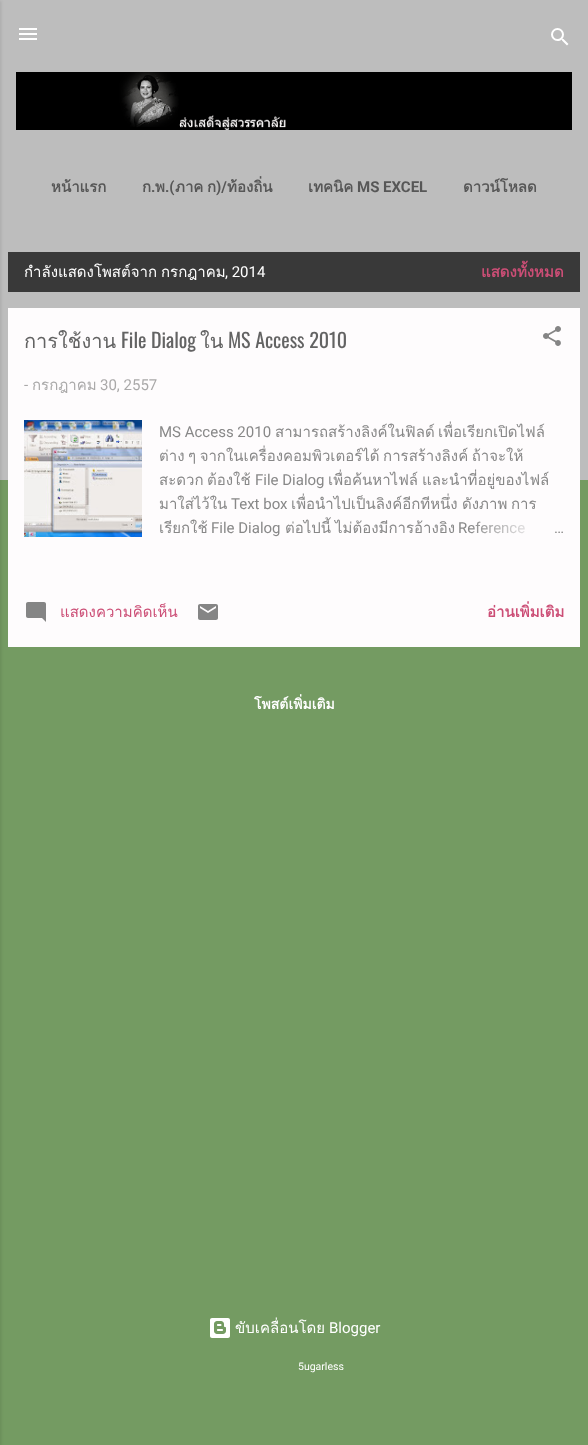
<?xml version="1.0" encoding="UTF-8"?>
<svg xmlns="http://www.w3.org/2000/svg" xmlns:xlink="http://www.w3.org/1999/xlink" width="588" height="1445">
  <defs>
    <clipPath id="clip1"><rect x="159" y="420" width="405" height="120" /></clipPath>
    <linearGradient id="g1" gradientUnits="userSpaceOnUse" x1="564" y1="528" x2="468" y2="528"><stop offset="0" stop-color="#fefcfd" /><stop offset="0.2" stop-color="#fefcfd" /><stop offset="1" stop-color="#fefcfd" stop-opacity="0" /></linearGradient>
  </defs>
  <rect width="100%" height="100%" fill="#749b62" />
  <rect width="588" height="480" fill="#bdbdbd" />
  <rect x="-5" y="1" width="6" height="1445" fill="#000000" fill-opacity="0.1" filter="blur(1.5px)" />
  <image x="19" y="28" width="18" height="12" xlink:href="image1.png" />
  <image x="551" y="28" width="18" height="18" xlink:href="image2.png" />
  <image x="16" y="72" width="556" height="58" xlink:href="image3.png" />
  <rect x="8" y="252" width="572" height="40" fill="#393939" />
  <rect x="8" y="308" width="572" height="339" fill="#fefcfd" />
  <image x="543" y="326" width="18" height="20" xlink:href="image4.png" />
  <image x="24" y="420" width="118" height="117" xlink:href="image5.png" />
  <image x="26" y="602" width="20" height="20" xlink:href="image6.png" />
  <image x="198" y="604" width="20" height="16" xlink:href="image7.png" />
  <text x="51" y="192" style="font-family: Loma; font-size: 15px; font-weight: bold; fill: #575757">หน้าแรก</text>
  <text x="165" y="192" style="font-family: Roboto; font-size: 15px; font-weight: bold; fill: #575757">.(</text>
  <text x="142" y="192" style="font-family: Loma; font-size: 15px; font-weight: bold; fill: #575757">ก</text>
  <text x="151" y="192" style="font-family: Roboto; font-size: 15px; font-weight: bold; fill: #575757">.</text>
  <text x="155" y="192" style="font-family: Loma; font-size: 15px; font-weight: bold; fill: #575757">พ</text>
  <text x="175" y="192" word-spacing="-1.5" style="font-family: Loma; font-size: 15px; font-weight: bold; fill: #575757">ภาค ก</text>
  <text x="216" y="192" style="font-family: Roboto; font-size: 15px; font-weight: bold; fill: #575757">)/</text>
  <text x="227" y="192" style="font-family: Loma; font-size: 15px; font-weight: bold; fill: #575757">ท้องถิ่น</text>
  <text x="308" y="192" style="font-family: Loma; font-size: 15px; font-weight: bold; fill: #575757">เทคนิค</text>
  <text x="357" y="192" style="font-family: Roboto; font-size: 15px; font-weight: bold; fill: #575757">MS EXCEL</text>
  <text x="463" y="192" style="font-family: Loma; font-size: 15px; font-weight: bold; fill: #575757">ดาวน์โหลด</text>
  <text x="24" y="277" style="font-family: Loma; font-size: 15px; fill: #ffffff">กำลังแสดงโพสต์จาก</text>
  <text x="161" y="277" style="font-family: Loma; font-size: 15px; fill: #ffffff">กรกฎาคม</text>
  <text x="225" y="277" style="font-family: Roboto; font-size: 15px; fill: #ffffff">, 2014</text>
  <text x="481" y="277" style="font-family: Loma; font-size: 15px; font-weight: bold; fill: #cc4e76">แสดงทั้งหมด</text>
  <text x="24" y="348" style="font-family: Loma; font-size: 20px; fill: #636363">การใช้งาน</text>
  <text x="121" y="348" style="font-family: Oswald; font-size: 20px; fill: #636363">File Dialog</text>
  <text x="200" y="348" style="font-family: Loma; font-size: 20px; fill: #636363">ใน</text>
  <text x="228" y="348" style="font-family: Oswald; font-size: 20px; fill: #636363">MS Access 2010</text>
  <text x="24" y="390" style="font-family: Roboto; font-size: 15px; fill: #aaa9a9">-</text>
  <text x="32" y="390" style="font-family: Loma; font-size: 15px; fill: #aaa9a9">กรกฎาคม</text>
  <text x="100" y="390" style="font-family: Roboto; font-size: 15px; fill: #aaa9a9">30, 2557</text>
  <text x="159" y="437" style="font-family: Roboto; font-size: 15px; fill: #888888">MS Access 2010</text>
  <text x="275" y="437" style="font-family: Loma; font-size: 15px; fill: #888888">สามารถสร้างลิงค์ในฟิลด์</text>
  <text x="438" y="437" style="font-family: Loma; font-size: 15px; fill: #888888">เพื่อเรียกเปิดไฟล์</text>
  <g clip-path="url(#clip1)">
    <text x="159" y="461" word-spacing="-1.5" style="font-family: Loma; font-size: 15px; fill: #888888">ต่าง ๆ จากในเครื่องคอมพิวเตอร์ได้ การสร้างลิงค์ ถ้าจะให้</text>
  </g>
  <text x="159" y="485" style="font-family: Loma; font-size: 15px; fill: #888888">สะดวก</text>
  <text x="207" y="485" style="font-family: Loma; font-size: 15px; fill: #888888">ต้องใช้</text>
  <text x="255" y="485" style="font-family: Roboto; font-size: 15px; fill: #888888">File Dialog</text>
  <text x="328" y="485" style="font-family: Loma; font-size: 15px; fill: #888888">เพื่อค้นหาไฟล์</text>
  <text x="422" y="485" style="font-family: Loma; font-size: 15px; fill: #888888">และนำที่อยู่ของไฟล์</text>
  <text x="159" y="509" style="font-family: Loma; font-size: 15px; fill: #888888">มาใส่ไว้ใน</text>
  <text x="231" y="509" style="font-family: Roboto; font-size: 15px; fill: #888888">Text box</text>
  <text x="291" y="509" style="font-family: Loma; font-size: 15px; fill: #888888">เพื่อนำไปเป็นลิงค์อีกทีหนึ่ง</text>
  <text x="462" y="509" style="font-family: Loma; font-size: 15px; fill: #888888">ดังภาพ</text>
  <text x="511" y="509" style="font-family: Loma; font-size: 15px; fill: #888888">การ</text>
  <g clip-path="url(#clip1)">
    <text x="159" y="533" style="font-family: Loma; font-size: 15px; fill: #888888">เรียกใช้</text>
  </g>
  <text x="211" y="533" style="font-family: Roboto; font-size: 15px; fill: #888888">File Dialog</text>
  <text x="285" y="533" style="font-family: Loma; font-size: 15px; fill: #888888">ต่อไปนี้</text>
  <text x="335" y="533" style="font-family: Loma; font-size: 15px; fill: #888888">ไม่ต้องมีการอ้างอิง</text>
  <text x="458" y="533" style="font-family: Roboto; font-size: 15px; fill: #888888">Reference</text>
  <rect x="470" y="521" width="55" height="13" fill="url(#g1)" />
  <text x="554" y="533" style="font-family: Roboto; font-size: 15px; fill: #888888">…</text>
  <text x="60" y="617" style="font-family: Loma; font-size: 15px; fill: #cc4e76">แสดงความคิดเห็น</text>
  <text x="487" y="617" style="font-family: Loma; font-size: 15px; font-weight: bold; fill: #cc4e76">อ่านเพิ่มเติม</text>
  <text x="254" y="709" style="font-family: Loma; font-size: 14px; font-weight: bold; fill: #ffffff">โพสต์เพิ่มเติม</text>
  <text x="235" y="1333" style="font-family: Loma; font-size: 15px; fill: #ffffff">ขับเคลื่อนโดย</text>
  <image x="210" y="1318" width="20" height="20" xlink:href="image8.png" />
  <text x="329" y="1333" style="font-family: Roboto; font-size: 15px; fill: #ffffff">Blogger</text>
  <text x="298" y="1370" style="font-family: Roboto; font-size: 10.5px; fill: #ffffff">5ugarless</text>
</svg>
